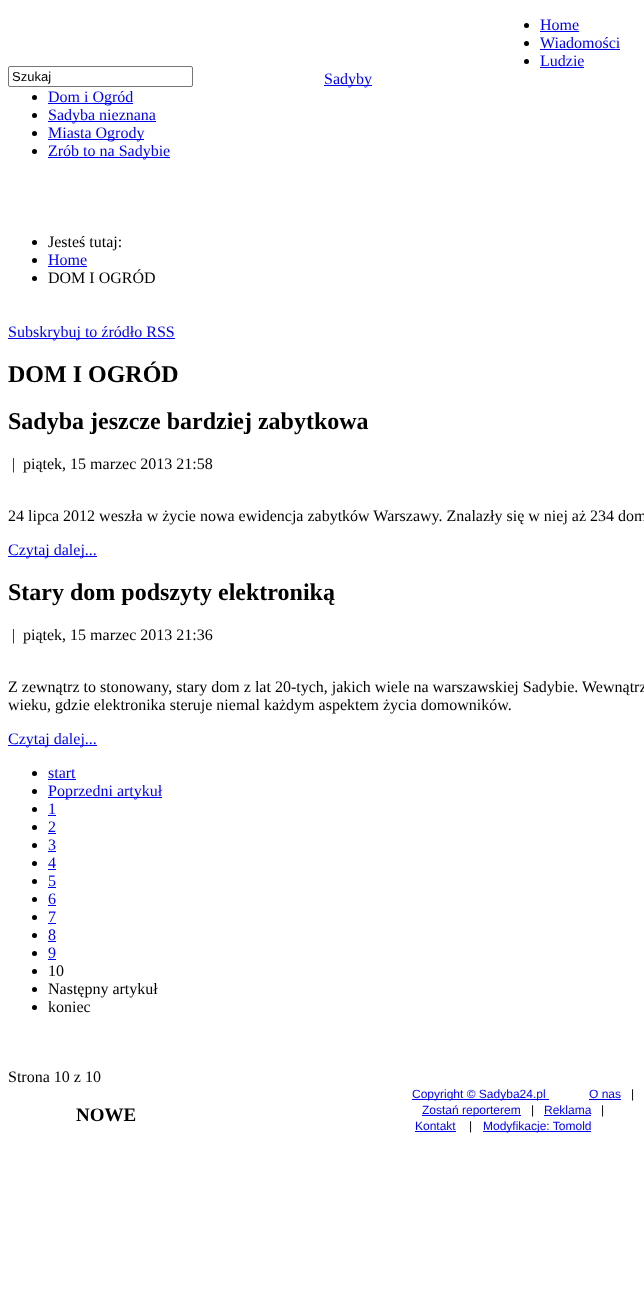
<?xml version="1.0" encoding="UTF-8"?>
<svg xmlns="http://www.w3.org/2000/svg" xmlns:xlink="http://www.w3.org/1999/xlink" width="644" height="1291">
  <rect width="100%" height="100%" fill="#ffffff" />
  <rect x="8.5" y="66.5" width="184" height="20" rx="1.5" fill="none" stroke="#767676" />
  <circle cx="526.5" cy="25.5" r="2.5" fill="#000000" />
  <rect x="540" y="31" width="39" height="1" fill="#0000ee" />
  <circle cx="526.5" cy="43.5" r="2.5" fill="#000000" />
  <rect x="540" y="49" width="80" height="1" fill="#0000ee" />
  <circle cx="526.5" cy="61.5" r="2.5" fill="#000000" />
  <rect x="540" y="67" width="44" height="1" fill="#0000ee" />
  <rect x="324" y="85" width="48" height="1" fill="#0000ee" />
  <circle cx="34.5" cy="97.5" r="2.5" fill="#000000" />
  <rect x="48" y="103" width="85" height="1" fill="#0000ee" />
  <circle cx="34.5" cy="115.5" r="2.5" fill="#000000" />
  <rect x="48" y="121" width="108" height="1" fill="#0000ee" />
  <circle cx="34.5" cy="133.5" r="2.5" fill="#000000" />
  <rect x="48" y="139" width="96" height="1" fill="#0000ee" />
  <circle cx="34.5" cy="151.5" r="2.5" fill="#000000" />
  <rect x="48" y="157" width="122" height="1" fill="#0000ee" />
  <circle cx="34.5" cy="242.5" r="2.5" fill="#000000" />
  <circle cx="34.5" cy="260.5" r="2.5" fill="#000000" />
  <rect x="48" y="266" width="39" height="1" fill="#0000ee" />
  <circle cx="34.5" cy="278.5" r="2.5" fill="#000000" />
  <rect x="8" y="338" width="167" height="1" fill="#0000ee" />
  <rect x="8" y="556" width="89" height="1" fill="#0000ee" />
  <rect x="8" y="745" width="89" height="1" fill="#0000ee" />
  <circle cx="34.5" cy="773.5" r="2.5" fill="#000000" />
  <rect x="48" y="779" width="28" height="1" fill="#0000ee" />
  <circle cx="34.5" cy="791.5" r="2.5" fill="#000000" />
  <rect x="48" y="797" width="114" height="1" fill="#0000ee" />
  <circle cx="34.5" cy="809.5" r="2.5" fill="#000000" />
  <rect x="48" y="815" width="8" height="1" fill="#0000ee" />
  <circle cx="34.5" cy="827.5" r="2.5" fill="#000000" />
  <rect x="48" y="833" width="8" height="1" fill="#0000ee" />
  <circle cx="34.5" cy="845.5" r="2.5" fill="#000000" />
  <rect x="48" y="851" width="8" height="1" fill="#0000ee" />
  <circle cx="34.5" cy="863.5" r="2.5" fill="#000000" />
  <rect x="48" y="869" width="8" height="1" fill="#0000ee" />
  <circle cx="34.5" cy="881.5" r="2.5" fill="#000000" />
  <rect x="48" y="887" width="8" height="1" fill="#0000ee" />
  <circle cx="34.5" cy="899.5" r="2.5" fill="#000000" />
  <rect x="48" y="905" width="8" height="1" fill="#0000ee" />
  <circle cx="34.5" cy="917.5" r="2.5" fill="#000000" />
  <rect x="48" y="923" width="8" height="1" fill="#0000ee" />
  <circle cx="34.5" cy="935.5" r="2.5" fill="#000000" />
  <rect x="48" y="941" width="8" height="1" fill="#0000ee" />
  <circle cx="34.5" cy="953.5" r="2.5" fill="#000000" />
  <rect x="48" y="959" width="8" height="1" fill="#0000ee" />
  <circle cx="34.5" cy="971.5" r="2.5" fill="#000000" />
  <circle cx="34.5" cy="989.5" r="2.5" fill="#000000" />
  <circle cx="34.5" cy="1007.5" r="2.5" fill="#000000" />
  <rect x="412" y="1099" width="137" height="1" fill="#0000ee" />
  <rect x="589" y="1099" width="32" height="1" fill="#0000ee" />
  <rect x="422" y="1115" width="99" height="1" fill="#0000ee" />
  <rect x="544" y="1115" width="47" height="1" fill="#0000ee" />
  <rect x="415" y="1131" width="41" height="1" fill="#0000ee" />
  <rect x="483" y="1131" width="108" height="1" fill="#0000ee" />
  <text x="12" y="81" style="font-family: Liberation Sans; font-size: 13px; fill: #000000">Szukaj</text>
  <text x="540" y="30" style="font-family: Liberation Serif; font-size: 16px; fill: #0000ee">Home</text>
  <text x="540" y="48" style="font-family: Liberation Serif; font-size: 16px; fill: #0000ee">Wiadomości</text>
  <text x="540" y="66" style="font-family: Liberation Serif; font-size: 16px; fill: #0000ee">Ludzie</text>
  <text x="324" y="84" style="font-family: Liberation Serif; font-size: 16px; fill: #0000ee">Sadyby</text>
  <text x="48" y="102" style="font-family: Liberation Serif; font-size: 16px; fill: #0000ee">Dom i Ogród</text>
  <text x="48" y="120" style="font-family: Liberation Serif; font-size: 16px; fill: #0000ee">Sadyba nieznana</text>
  <text x="48" y="138" style="font-family: Liberation Serif; font-size: 16px; fill: #0000ee">Miasta Ogrody</text>
  <text x="48" y="156" style="font-family: Liberation Serif; font-size: 16px; fill: #0000ee">Zrób to na Sadybie</text>
  <text x="48" y="247" style="font-family: Liberation Serif; font-size: 16px; fill: #000000">Jesteś tutaj:</text>
  <text x="48" y="265" style="font-family: Liberation Serif; font-size: 16px; fill: #0000ee">Home</text>
  <text x="48" y="283" style="font-family: Liberation Serif; font-size: 16px; fill: #000000">DOM I OGRÓD</text>
  <text x="8" y="337" style="font-family: Liberation Serif; font-size: 16px; fill: #0000ee">Subskrybuj to źródło RSS</text>
  <text x="8" y="382" style="font-family: Liberation Serif; font-size: 24px; font-weight: bold; fill: #000000">DOM I OGRÓD</text>
  <text x="8" y="429" style="font-family: Liberation Serif; font-size: 24px; font-weight: bold; fill: #000000">Sadyba jeszcze bardziej zabytkowa</text>
  <text x="12" y="469" style="font-family: Liberation Serif; font-size: 16px; fill: #000000">|</text>
  <text x="23" y="469" style="font-family: Liberation Serif; font-size: 16px; fill: #000000">piątek, 15 marzec 2013 21:58</text>
  <text x="8" y="521" style="font-family: Liberation Serif; font-size: 16px; fill: #000000">24 lipca 2012 weszła w życie nowa ewidencja zabytków Warszawy. Znalazły się w niej aż 234 dom</text>
  <text x="8" y="555" style="font-family: Liberation Serif; font-size: 16px; fill: #0000ee">Czytaj dalej...</text>
  <text x="8" y="600" style="font-family: Liberation Serif; font-size: 24px; font-weight: bold; fill: #000000">Stary dom podszyty elektroniką</text>
  <text x="12" y="640" style="font-family: Liberation Serif; font-size: 16px; fill: #000000">|</text>
  <text x="23" y="640" style="font-family: Liberation Serif; font-size: 16px; fill: #000000">piątek, 15 marzec 2013 21:36</text>
  <text x="8" y="692" style="font-family: Liberation Serif; font-size: 16px; fill: #000000">Z zewnątrz to stonowany, stary dom z lat 20-tych, jakich wiele na warszawskiej Sadybie. Wewnątrz</text>
  <text x="8" y="710" style="font-family: Liberation Serif; font-size: 16px; fill: #000000">wieku, gdzie elektronika steruje niemal każdym aspektem życia domowników.</text>
  <text x="8" y="744" style="font-family: Liberation Serif; font-size: 16px; fill: #0000ee">Czytaj dalej...</text>
  <text x="48" y="778" style="font-family: Liberation Serif; font-size: 16px; fill: #0000ee">start</text>
  <text x="48" y="796" style="font-family: Liberation Serif; font-size: 16px; fill: #0000ee">Poprzedni artykuł</text>
  <text x="48" y="814" style="font-family: Liberation Serif; font-size: 16px; fill: #0000ee">1</text>
  <text x="48" y="832" style="font-family: Liberation Serif; font-size: 16px; fill: #0000ee">2</text>
  <text x="48" y="850" style="font-family: Liberation Serif; font-size: 16px; fill: #0000ee">3</text>
  <text x="48" y="868" style="font-family: Liberation Serif; font-size: 16px; fill: #0000ee">4</text>
  <text x="48" y="886" style="font-family: Liberation Serif; font-size: 16px; fill: #0000ee">5</text>
  <text x="48" y="904" style="font-family: Liberation Serif; font-size: 16px; fill: #0000ee">6</text>
  <text x="48" y="922" style="font-family: Liberation Serif; font-size: 16px; fill: #0000ee">7</text>
  <text x="48" y="940" style="font-family: Liberation Serif; font-size: 16px; fill: #0000ee">8</text>
  <text x="48" y="958" style="font-family: Liberation Serif; font-size: 16px; fill: #0000ee">9</text>
  <text x="48" y="976" style="font-family: Liberation Serif; font-size: 16px; fill: #000000">10</text>
  <text x="48" y="994" style="font-family: Liberation Serif; font-size: 16px; fill: #000000">Następny artykuł</text>
  <text x="48" y="1012" style="font-family: Liberation Serif; font-size: 16px; fill: #000000">koniec</text>
  <text x="8" y="1082" style="font-family: Liberation Serif; font-size: 16px; fill: #000000">Strona 10 z 10</text>
  <text x="76" y="1121" style="font-family: Liberation Serif; font-size: 19px; font-weight: bold; fill: #000000">NOWE</text>
  <text x="412" y="1098" style="font-family: Liberation Sans; font-size: 12px; fill: #0000ee">Copyright © Sadyba24.pl</text>
  <text x="589" y="1098" style="font-family: Liberation Sans; font-size: 12px; fill: #0000ee">O nas</text>
  <text x="631" y="1098" style="font-family: Liberation Sans; font-size: 12px; fill: #000000">|</text>
  <text x="422" y="1114" style="font-family: Liberation Sans; font-size: 12px; fill: #0000ee">Zostań reporterem</text>
  <text x="531" y="1114" style="font-family: Liberation Sans; font-size: 12px; fill: #000000">|</text>
  <text x="544" y="1114" style="font-family: Liberation Sans; font-size: 12px; fill: #0000ee">Reklama</text>
  <text x="601" y="1114" style="font-family: Liberation Sans; font-size: 12px; fill: #000000">|</text>
  <text x="415" y="1130" style="font-family: Liberation Sans; font-size: 12px; fill: #0000ee">Kontakt</text>
  <text x="469" y="1130" style="font-family: Liberation Sans; font-size: 12px; fill: #000000">|</text>
  <text x="483" y="1130" style="font-family: Liberation Sans; font-size: 12px; fill: #0000ee">Modyfikacje: Tomold</text>
</svg>
